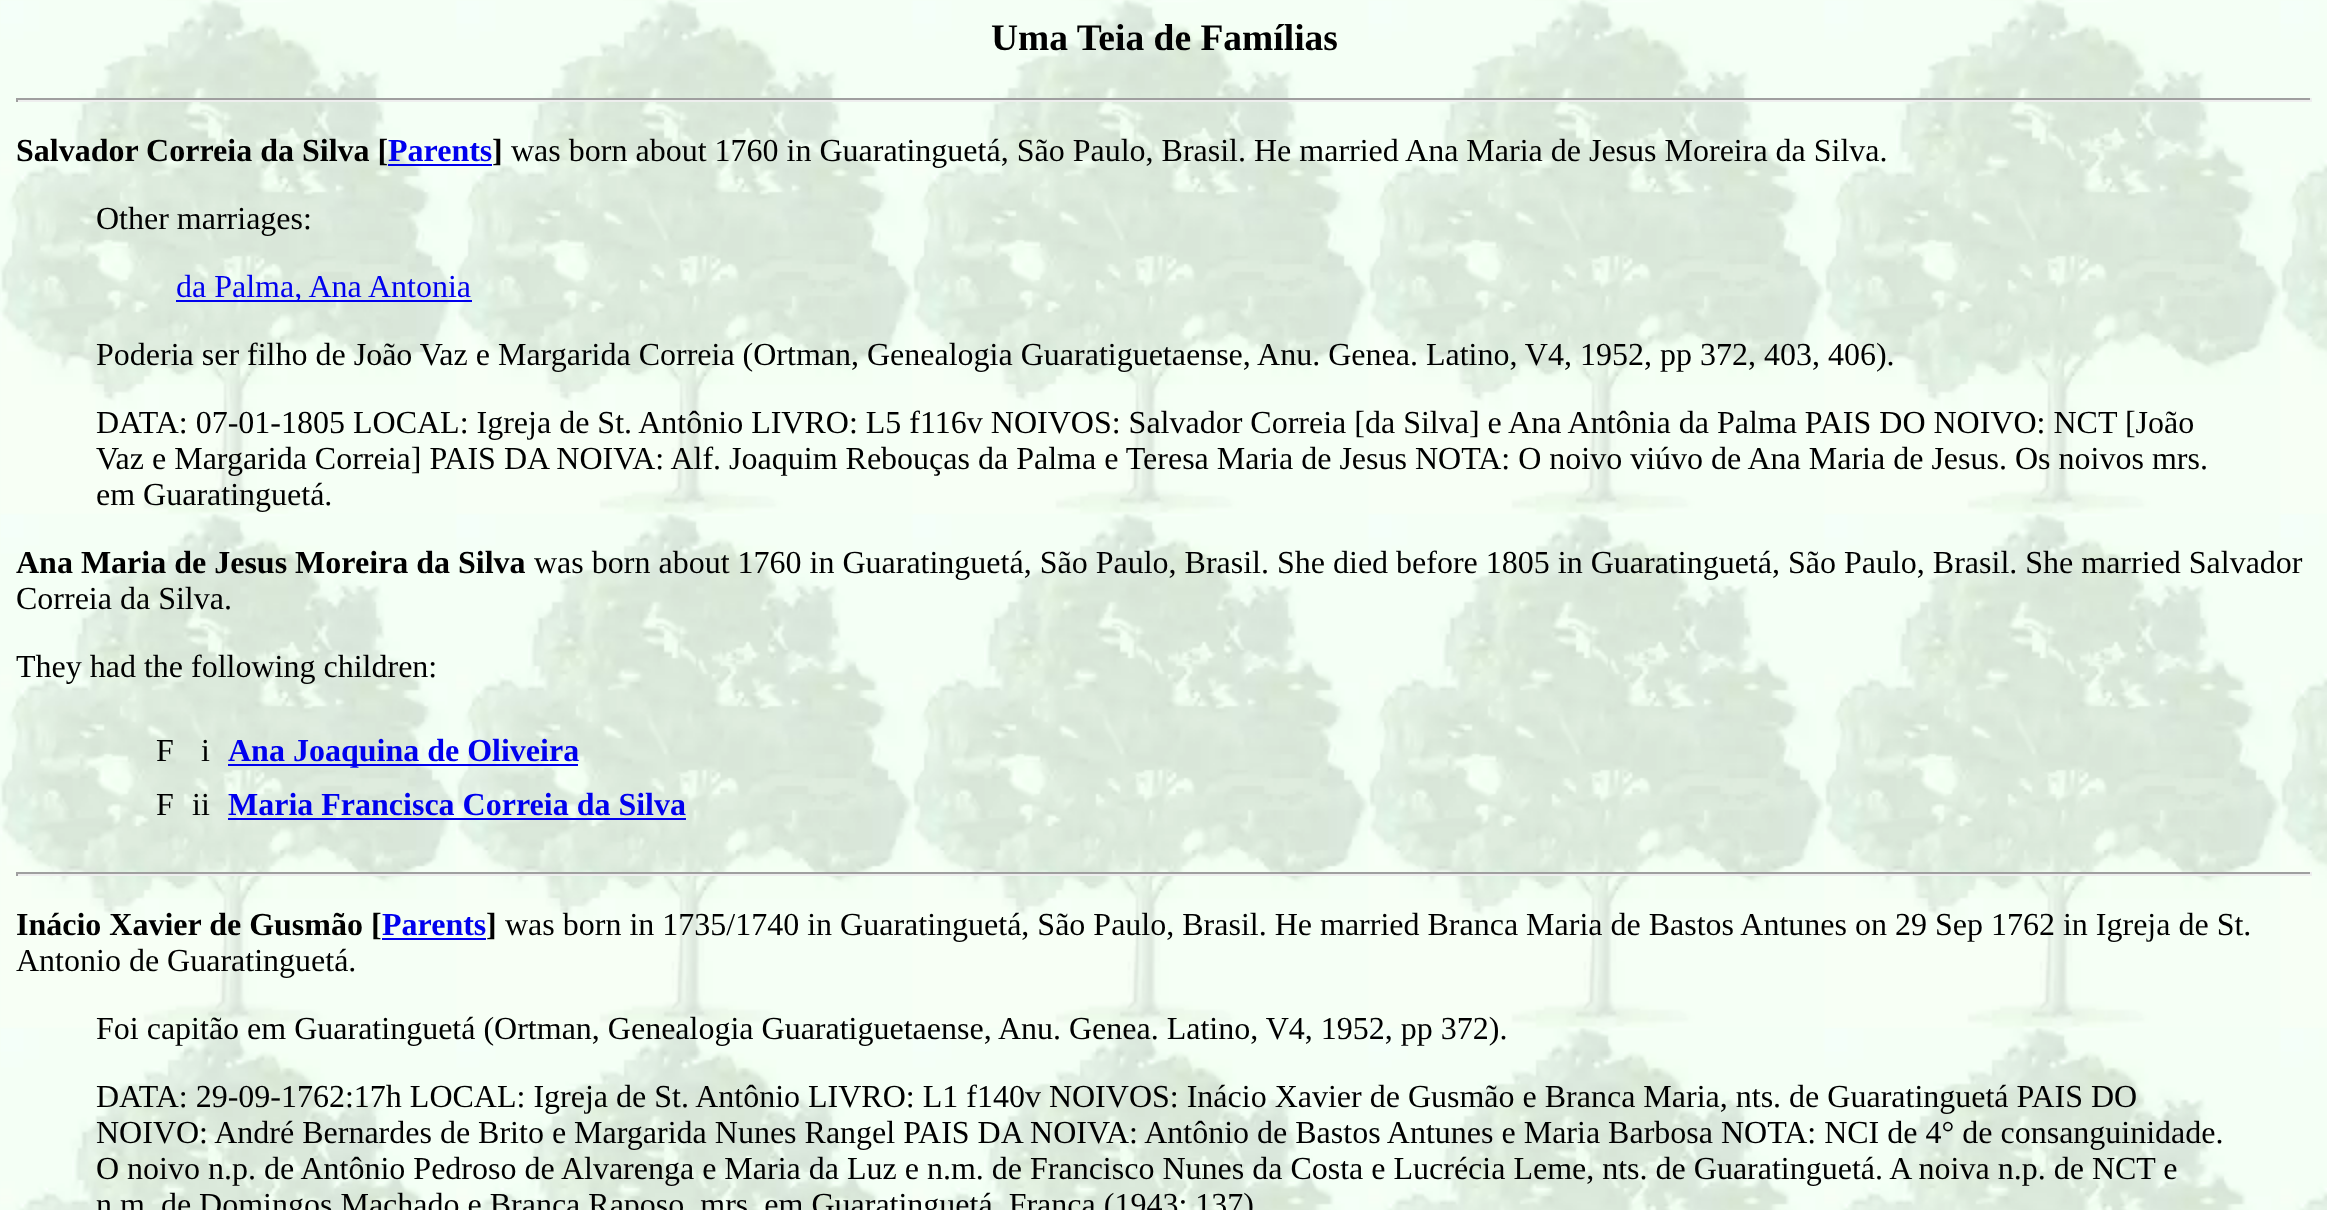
<?xml version="1.0" encoding="UTF-8"?>
<svg xmlns="http://www.w3.org/2000/svg" xmlns:xlink="http://www.w3.org/1999/xlink" width="2327" height="1210">
  <rect width="100%" height="100%" fill="#ffffff" />
  <image x="0" y="0" width="2327" height="1210" xlink:href="image1.png" />
  <rect x="16" y="98" width="2296" height="2" fill="#9f9f9f" />
  <rect x="2310" y="98" width="2" height="4" fill="#eeeeee" />
  <rect x="16" y="100" width="2296" height="2" fill="#eeeeee" />
  <rect x="16" y="98" width="2" height="4" fill="#9f9f9f" />
  <rect x="388" y="164" width="104" height="2" fill="#0000ee" />
  <rect x="176" y="300" width="296" height="2" fill="#0000ee" />
  <rect x="228" y="764" width="350" height="2" fill="#0000ee" />
  <rect x="228" y="818" width="458" height="2" fill="#0000ee" />
  <rect x="16" y="872" width="2296" height="2" fill="#9f9f9f" />
  <rect x="2310" y="872" width="2" height="4" fill="#eeeeee" />
  <rect x="16" y="874" width="2296" height="2" fill="#eeeeee" />
  <rect x="16" y="872" width="2" height="4" fill="#9f9f9f" />
  <rect x="382" y="938" width="104" height="2" fill="#0000ee" />
  <text x="991" y="50" style="font-family: Liberation Serif; font-size: 37.5px; font-weight: bold; fill: #000000">Uma Teia de Famílias</text>
  <text x="16" y="161" style="font-family: Liberation Serif; font-size: 32px; font-weight: bold; fill: #000000">Salvador Correia da Silva [</text>
  <text x="388" y="161" style="font-family: Liberation Serif; font-size: 32px; font-weight: bold; fill: #0000ee">Parents</text>
  <text x="492" y="161" style="font-family: Liberation Serif; font-size: 32px; font-weight: bold; fill: #000000">]</text>
  <text x="511" y="161" style="font-family: Liberation Serif; font-size: 32px; fill: #000000">was born about 1760 in Guaratinguetá, São Paulo, Brasil. He married Ana Maria de Jesus Moreira da Silva.</text>
  <text x="96" y="229" style="font-family: Liberation Serif; font-size: 32px; fill: #000000">Other marriages:</text>
  <text x="176" y="297" style="font-family: Liberation Serif; font-size: 32px; fill: #0000ee">da Palma, Ana Antonia</text>
  <text x="96" y="365" style="font-family: Liberation Serif; font-size: 32px; fill: #000000">Poderia ser filho de João Vaz e Margarida Correia (Ortman, Genealogia Guaratiguetaense, Anu. Genea. Latino, V4, 1952, pp 372, 403, 406).</text>
  <text x="96" y="433" style="font-family: Liberation Serif; font-size: 32px; fill: #000000">DATA: 07-01-1805 LOCAL: Igreja de St. Antônio LIVRO: L5 f116v NOIVOS: Salvador Correia [da Silva] e Ana Antônia da Palma PAIS DO NOIVO: NCT [João</text>
  <text x="96" y="469" style="font-family: Liberation Serif; font-size: 32px; fill: #000000">Vaz e Margarida Correia] PAIS DA NOIVA: Alf. Joaquim Rebouças da Palma e Teresa Maria de Jesus NOTA: O noivo viúvo de Ana Maria de Jesus. Os noivos mrs.</text>
  <text x="96" y="505" style="font-family: Liberation Serif; font-size: 32px; fill: #000000">em Guaratinguetá.</text>
  <text x="16" y="573" style="font-family: Liberation Serif; font-size: 32px; font-weight: bold; fill: #000000">Ana Maria de Jesus Moreira da Silva</text>
  <text x="534" y="573" style="font-family: Liberation Serif; font-size: 32px; fill: #000000">was born about 1760 in Guaratinguetá, São Paulo, Brasil. She died before 1805 in Guaratinguetá, São Paulo, Brasil. She married Salvador</text>
  <text x="16" y="609" style="font-family: Liberation Serif; font-size: 32px; fill: #000000">Correia da Silva.</text>
  <text x="16" y="677" style="font-family: Liberation Serif; font-size: 32px; fill: #000000">They had the following children:</text>
  <text x="156" y="761" style="font-family: Liberation Serif; font-size: 32px; fill: #000000">F</text>
  <text x="201" y="761" style="font-family: Liberation Serif; font-size: 32px; fill: #000000">i</text>
  <text x="228" y="761" style="font-family: Liberation Serif; font-size: 32px; font-weight: bold; fill: #0000ee">Ana Joaquina de Oliveira</text>
  <text x="156" y="815" style="font-family: Liberation Serif; font-size: 32px; fill: #000000">F</text>
  <text x="192" y="815" style="font-family: Liberation Serif; font-size: 32px; fill: #000000">ii</text>
  <text x="228" y="815" style="font-family: Liberation Serif; font-size: 32px; font-weight: bold; fill: #0000ee">Maria Francisca Correia da Silva</text>
  <text x="16" y="935" style="font-family: Liberation Serif; font-size: 32px; font-weight: bold; fill: #000000">Inácio Xavier de Gusmão [</text>
  <text x="382" y="935" style="font-family: Liberation Serif; font-size: 32px; font-weight: bold; fill: #0000ee">Parents</text>
  <text x="486" y="935" style="font-family: Liberation Serif; font-size: 32px; font-weight: bold; fill: #000000">]</text>
  <text x="505" y="935" style="font-family: Liberation Serif; font-size: 32px; fill: #000000">was born in 1735/1740 in Guaratinguetá, São Paulo, Brasil. He married Branca Maria de Bastos Antunes on 29 Sep 1762 in Igreja de St.</text>
  <text x="16" y="971" style="font-family: Liberation Serif; font-size: 32px; fill: #000000">Antonio de Guaratinguetá.</text>
  <text x="96" y="1039" style="font-family: Liberation Serif; font-size: 32px; fill: #000000">Foi capitão em Guaratinguetá (Ortman, Genealogia Guaratiguetaense, Anu. Genea. Latino, V4, 1952, pp 372).</text>
  <text x="96" y="1107" style="font-family: Liberation Serif; font-size: 32px; fill: #000000">DATA: 29-09-1762:17h LOCAL: Igreja de St. Antônio LIVRO: L1 f140v NOIVOS: Inácio Xavier de Gusmão e Branca Maria, nts. de Guaratinguetá PAIS DO</text>
  <text x="96" y="1143" style="font-family: Liberation Serif; font-size: 32px; fill: #000000">NOIVO: André Bernardes de Brito e Margarida Nunes Rangel PAIS DA NOIVA: Antônio de Bastos Antunes e Maria Barbosa NOTA: NCI de 4° de consanguinidade.</text>
  <text x="96" y="1179" style="font-family: Liberation Serif; font-size: 32px; fill: #000000">O noivo n.p. de Antônio Pedroso de Alvarenga e Maria da Luz e n.m. de Francisco Nunes da Costa e Lucrécia Leme, nts. de Guaratinguetá. A noiva n.p. de NCT e</text>
  <text x="96" y="1215" style="font-family: Liberation Serif; font-size: 32px; fill: #000000">n.m. de Domingos Machado e Branca Raposo, mrs. em Guaratinguetá. França (1943: 137)</text>
</svg>
